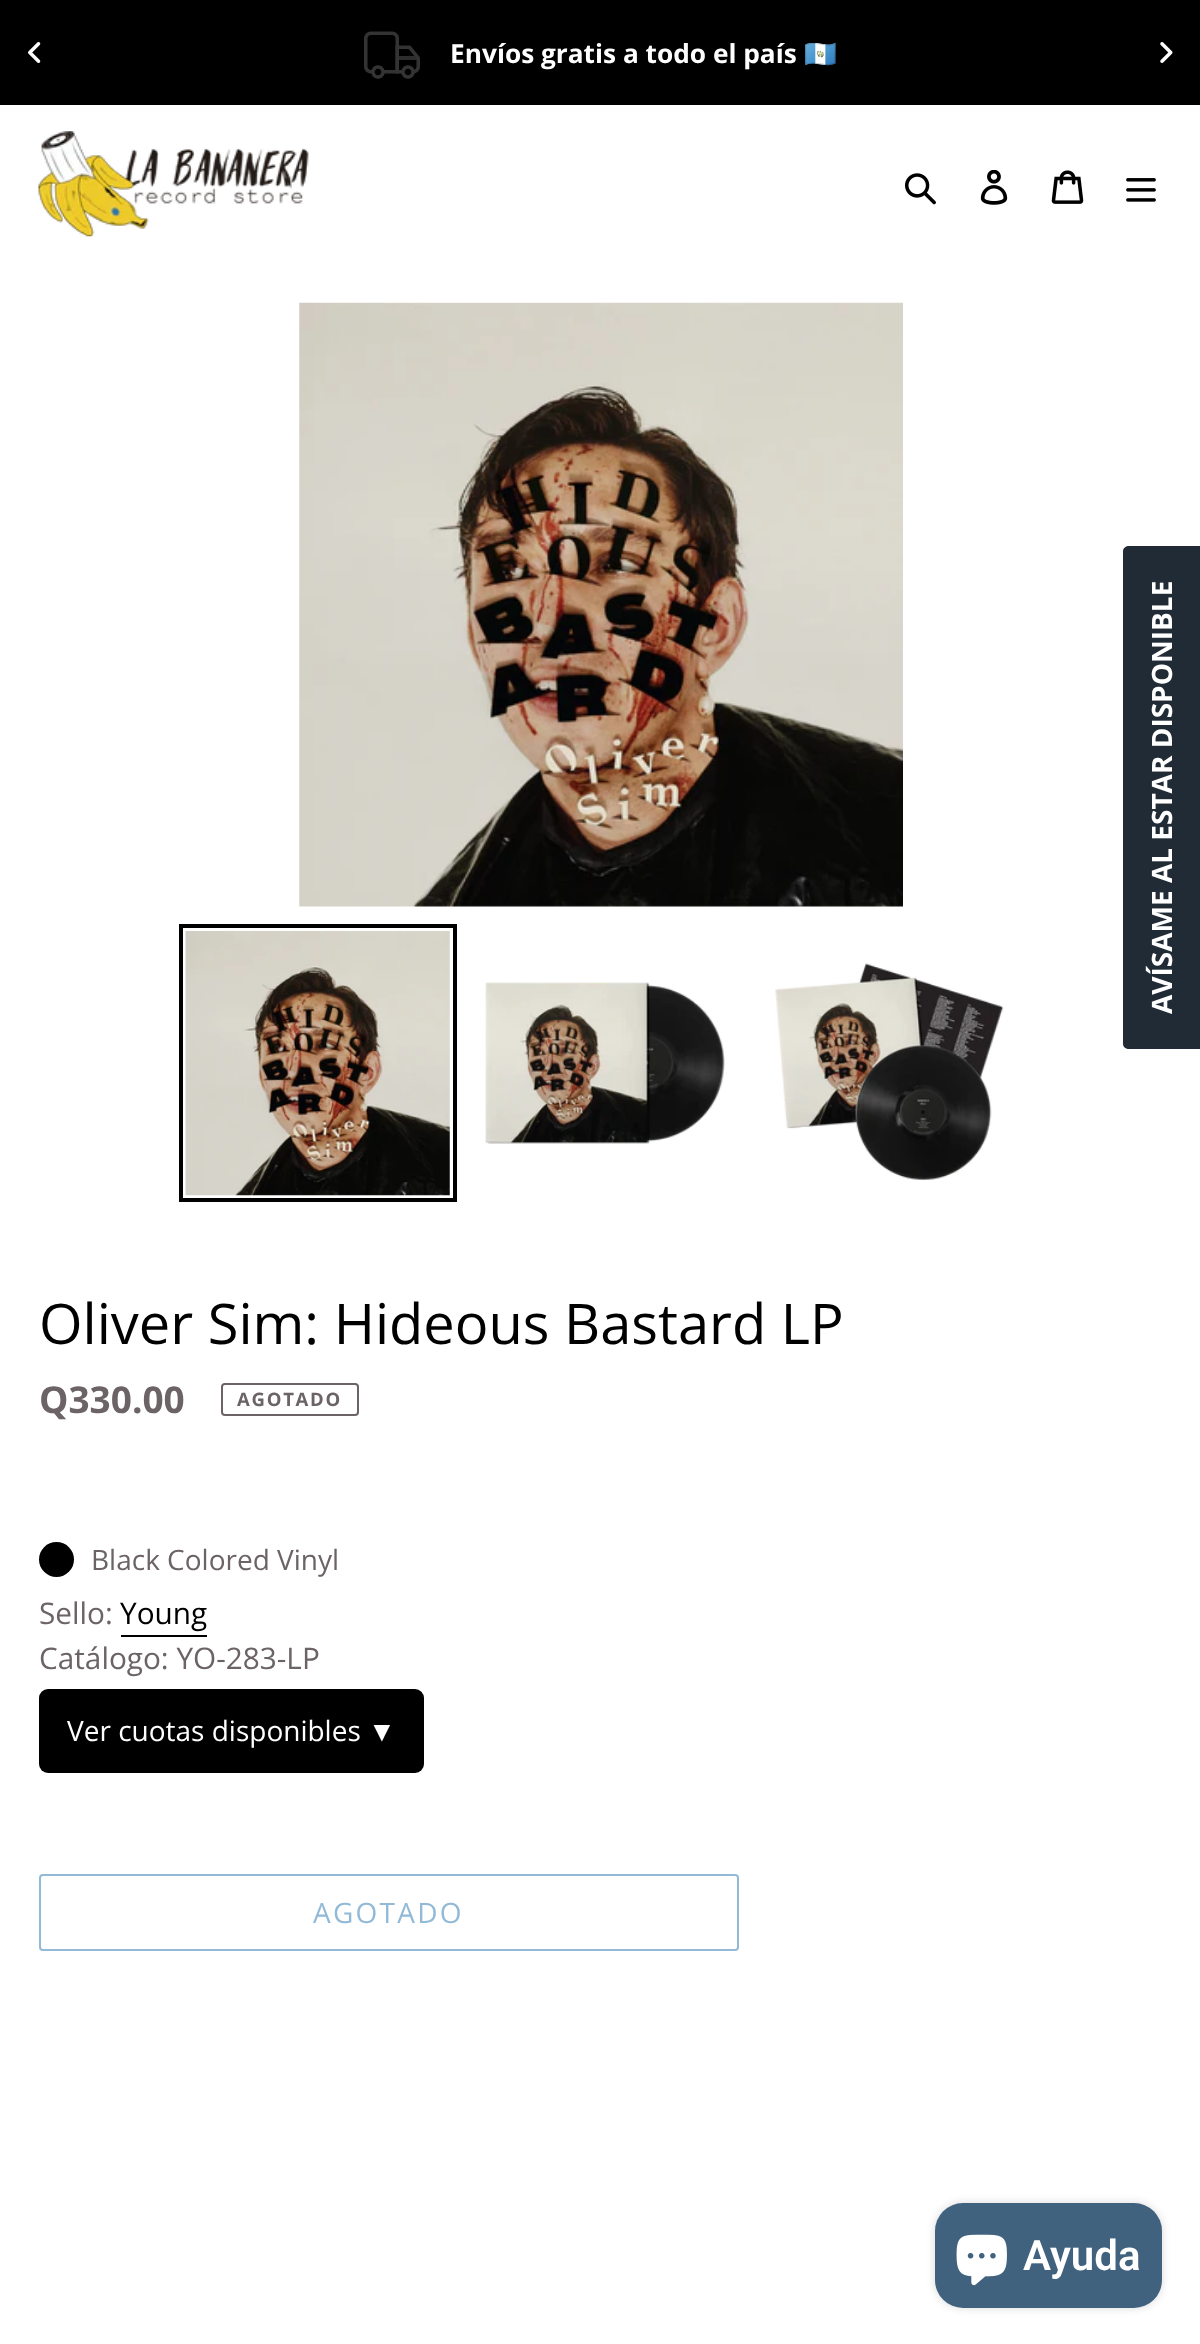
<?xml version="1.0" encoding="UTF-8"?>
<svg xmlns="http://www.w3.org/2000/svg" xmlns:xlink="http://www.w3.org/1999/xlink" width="1200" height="2344">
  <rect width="100%" height="100%" fill="#ffffff" />
  <rect width="1200" height="105" fill="#000000" />
  <image x="364" y="31" width="56" height="48" xlink:href="image1.png" />
  <image x="28" y="42" width="13" height="21" xlink:href="image2.png" />
  <image x="1160" y="42" width="13" height="21" xlink:href="image3.png" />
  <image x="38" y="131" width="271" height="106" xlink:href="image4.png" />
  <image x="905" y="173" width="31" height="32" xlink:href="image5.png" />
  <image x="980" y="170" width="28" height="35" xlink:href="image6.png" />
  <image x="1051" y="170" width="33" height="34" xlink:href="image7.png" />
  <image x="1126" y="178" width="30" height="24" xlink:href="image8.png" />
  <path d="M 1123 1044 v -493 c 0 -3 3 -5 6 -5 h 71 v 503 h -71 c -3 0 -6 -2 -6 -5 z" fill="#212b36" />
  <image x="299" y="302" width="604" height="605" xlink:href="image9.png" />
  <rect x="181" y="926" width="274" height="274" fill="none" stroke="#000000" stroke-width="4" />
  <image x="185" y="931" width="265" height="265" xlink:href="image10.png" />
  <image x="485" y="982" width="240" height="162" xlink:href="image11.png" />
  <image x="775" y="963" width="229" height="218" xlink:href="image12.png" />
  <rect x="222" y="1384" width="136" height="31" rx="3" fill="none" stroke="#6b6365" stroke-width="2" />
  <circle cx="56.5" cy="1559.5" r="17.5" fill="#000000" />
  <rect x="121" y="1635" width="86" height="2" fill="#000000" />
  <rect x="39" y="1689" width="385" height="84" rx="9" fill="#000000" />
  <rect x="40" y="1875" width="698" height="75" rx="3" fill="none" stroke="#92bad7" stroke-width="2" />
  <rect x="935" y="2203" width="227" height="105" rx="28" fill="#000000" fill-opacity="0.15" filter="blur(4.5px)" />
  <rect x="935" y="2203" width="227" height="105" rx="28" fill="#40627e" />
  <image x="956" y="2234" width="51" height="52" xlink:href="image13.png" />
  <text x="450" y="63" style="font-family: Open Sans; font-size: 26.25px; font-weight: bold; fill: #ffffff">Envíos gratis a todo el país</text>
  <text x="804" y="63" style="font-family: Noto Color Emoji; font-size: 26.25px; font-weight: bold; fill: #ffffff">🇬🇹</text>
  <text x="1172" y="1014" transform="rotate(-90 1172 1014)" style="font-family: Open Sans; font-size: 28px; font-weight: bold; fill: #ffffff">AVÍSAME AL ESTAR DISPONIBLE</text>
  <text x="39" y="1344" style="font-family: Open Sans; font-size: 56px; fill: #000000">Oliver Sim: Hideous Bastard LP</text>
  <text x="39" y="1413" style="font-family: Open Sans; font-size: 37px; font-weight: bold; fill: #6b6365">Q330.00</text>
  <text x="237" y="1406" style="font-family: Open Sans; font-size: 18.5px; font-weight: bold; letter-spacing: 1.75px; fill: #6b6365">AGOTADO</text>
  <text x="91" y="1570" style="font-family: Open Sans; font-size: 28px; fill: #6b6365">Black Colored Vinyl</text>
  <text x="39" y="1624" style="font-family: Open Sans; font-size: 29.75px; fill: #6b6365">Sello:</text>
  <text x="120" y="1624" style="font-family: Open Sans; font-size: 29.75px; fill: #000000">Young</text>
  <text x="39" y="1669" style="font-family: Open Sans; font-size: 29.75px; fill: #6b6365">Catálogo: YO-283-LP</text>
  <text x="67" y="1741" style="font-family: Open Sans; font-size: 28px; fill: #ffffff">Ver cuotas disponibles</text>
  <text x="368" y="1741" style="font-family: Liberation Sans; font-size: 28px; fill: #ffffff">▼</text>
  <text x="313" y="1923" style="font-family: Open Sans; font-size: 28px; letter-spacing: 2.25px; fill: #92bad7">AGOTADO</text>
  <text x="1023" y="2270" style="font-family: Roboto; font-size: 42px; font-weight: 600; fill: #ffffff">Ayuda</text>
</svg>
